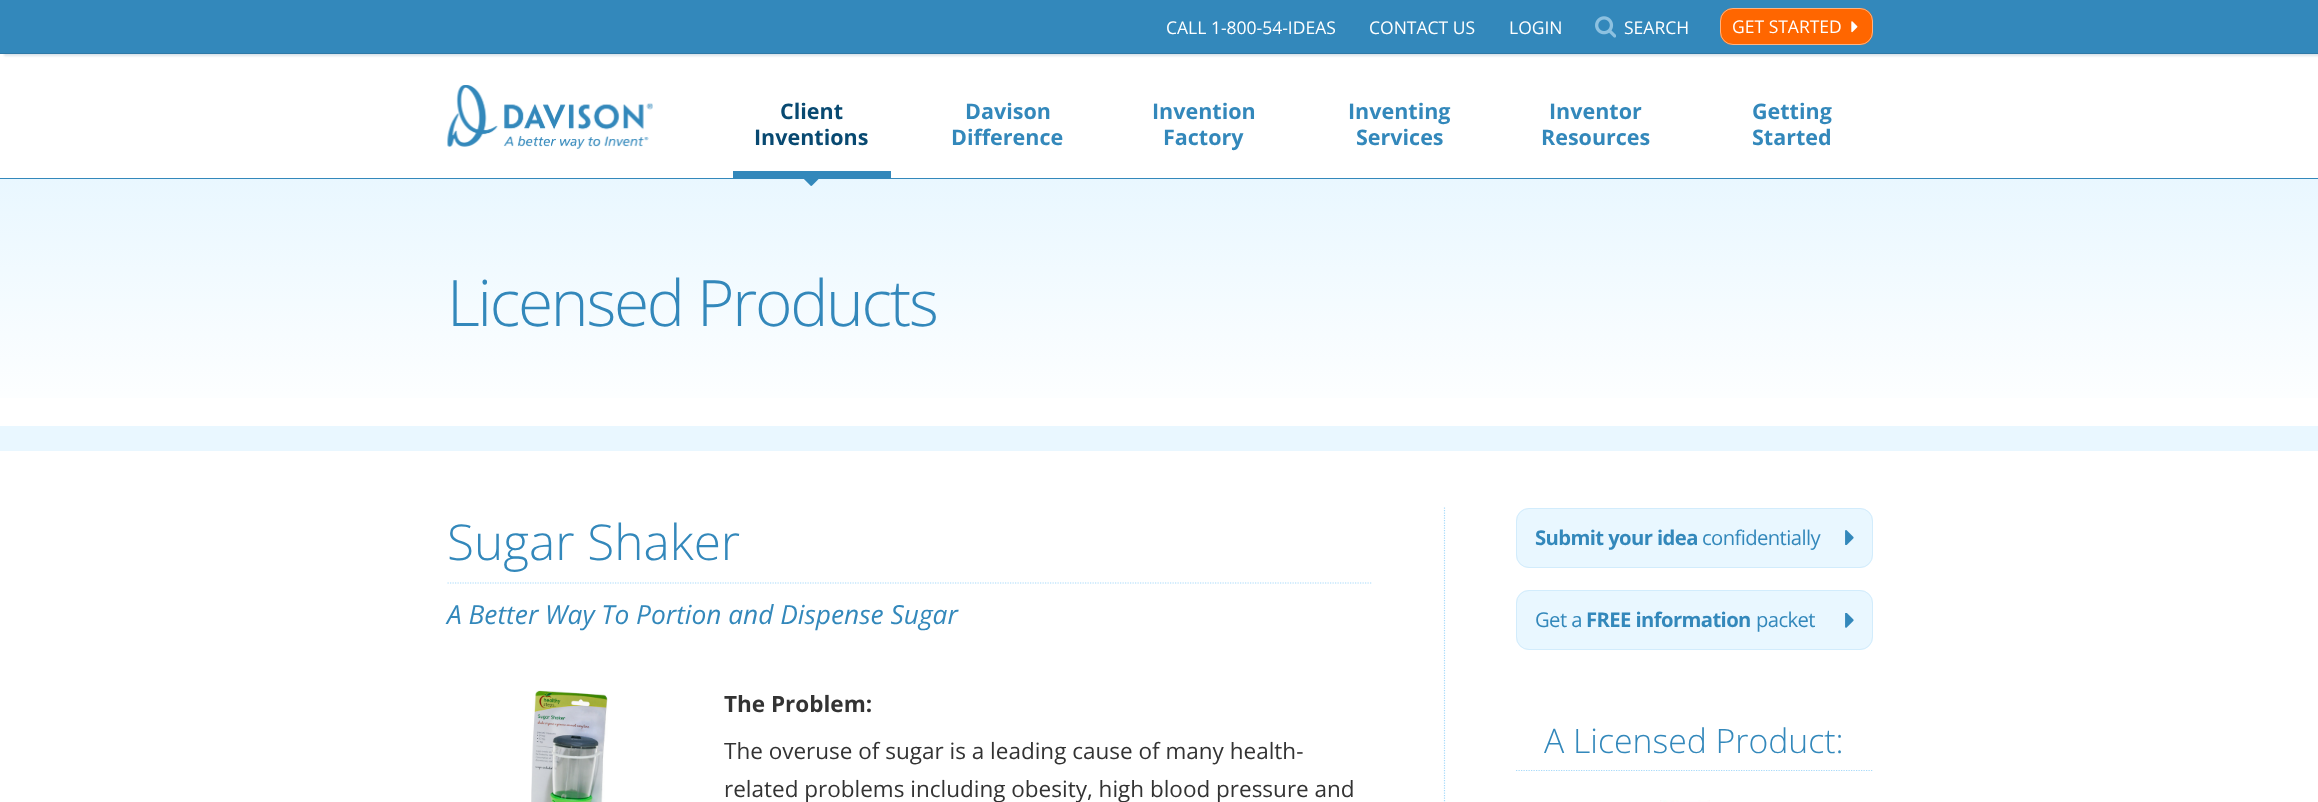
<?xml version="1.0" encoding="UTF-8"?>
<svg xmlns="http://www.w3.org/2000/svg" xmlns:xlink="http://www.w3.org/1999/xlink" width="2318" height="802">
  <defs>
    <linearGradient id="g1" gradientUnits="userSpaceOnUse" x1="1159" y1="179" x2="1159" y2="426"><stop offset="0" stop-color="#e9f7ff" /><stop offset="1" stop-color="#ffffff" /></linearGradient>
  </defs>
  <rect width="100%" height="100%" fill="#ffffff" />
  <rect y="178" width="2318" height="1" fill="#3388bb" />
  <rect x="4" y="5" width="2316" height="51" fill="#0a4369" fill-opacity="0.15" filter="blur(1px)" />
  <rect width="2318" height="53" fill="#3388bb" />
  <rect y="53" width="2318" height="1" fill="#2e79a7" />
  <image x="1595" y="16" width="21" height="22" xlink:href="image1.png" />
  <rect x="1720" y="8" width="153" height="37" rx="13" fill="#ff6600" />
  <image x="1851" y="21" width="7" height="12" xlink:href="image2.png" />
  <rect x="1720.5" y="8.5" width="152" height="36" rx="12.5" fill="none" stroke="#ffffff" stroke-opacity="0.5" />
  <image x="447" y="85" width="206" height="64" xlink:href="image3.png" />
  <rect x="733" y="171" width="158" height="7" fill="#3388bb" />
  <rect y="179" width="2318" height="219" fill="url(#g1)" />
  <image x="804" y="179" width="15" height="7" xlink:href="image4.png" />
  <rect y="426" width="2318" height="25" fill="#e9f7ff" />
  <path d="M 1444.5 507.5 v 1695" fill="none" stroke="#a8daf9" stroke-width="1.2" stroke-dasharray="1.25 1.25" />
  <path d="M 447.5 583 h 925" fill="none" stroke="#a8daf9" stroke-width="1.2" stroke-dasharray="1.25 1.25" />
  <image x="531" y="690" width="77" height="112" xlink:href="image5.png" />
  <rect x="1516" y="508" width="357" height="60" rx="13" fill="#e9f7ff" />
  <image x="1845" y="530" width="9" height="15" xlink:href="image6.png" />
  <rect x="1516.5" y="508.5" width="356" height="59" rx="12.5" fill="none" stroke="#d2ecfc" />
  <rect x="1516" y="590" width="357" height="60" rx="13" fill="#e9f7ff" />
  <image x="1845" y="613" width="9" height="15" xlink:href="image7.png" />
  <rect x="1516.5" y="590.5" width="356" height="59" rx="12.5" fill="none" stroke="#d2ecfc" />
  <path d="M 1516 770.5 h 356.5" fill="none" stroke="#a8daf9" stroke-width="1.2" stroke-dasharray="1.25 1.25" />
  <image x="1660" y="800" width="50" height="2" xlink:href="image8.png" />
  <text x="1166" y="34" style="font-family: Open Sans; font-size: 17.5px; fill: #ffffff">CALL 1-800-54-IDEAS</text>
  <text x="1369" y="34" style="font-family: Open Sans; font-size: 17.5px; fill: #ffffff">CONTACT US</text>
  <text x="1509" y="34" style="font-family: Open Sans; font-size: 17.5px; fill: #ffffff">LOGIN</text>
  <text x="1624" y="34" style="font-family: Open Sans; font-size: 17.5px; fill: #ffffff">SEARCH</text>
  <text x="1732" y="33" style="font-family: Open Sans; font-size: 17.5px; fill: #ffffff">GET STARTED</text>
  <text x="780" y="119" style="font-family: Open Sans; font-size: 21.5px; font-weight: bold; fill: #084971">Client</text>
  <text x="754" y="145" style="font-family: Open Sans; font-size: 21.5px; font-weight: bold; fill: #084971">Inventions</text>
  <text x="965" y="119" style="font-family: Open Sans; font-size: 21.5px; font-weight: bold; fill: #3388bb">Davison</text>
  <text x="951" y="145" style="font-family: Open Sans; font-size: 21.5px; font-weight: bold; fill: #3388bb">Difference</text>
  <text x="1152" y="119" style="font-family: Open Sans; font-size: 21.5px; font-weight: bold; fill: #3388bb">Invention</text>
  <text x="1163" y="145" style="font-family: Open Sans; font-size: 21.5px; font-weight: bold; fill: #3388bb">Factory</text>
  <text x="1348" y="119" style="font-family: Open Sans; font-size: 21.5px; font-weight: bold; fill: #3388bb">Inventing</text>
  <text x="1356" y="145" style="font-family: Open Sans; font-size: 21.5px; font-weight: bold; fill: #3388bb">Services</text>
  <text x="1549" y="119" style="font-family: Open Sans; font-size: 21.5px; font-weight: bold; fill: #3388bb">Inventor</text>
  <text x="1541" y="145" style="font-family: Open Sans; font-size: 21.5px; font-weight: bold; fill: #3388bb">Resources</text>
  <text x="1752" y="119" style="font-family: Open Sans; font-size: 21.5px; font-weight: bold; fill: #3388bb">Getting</text>
  <text x="1752" y="145" style="font-family: Open Sans; font-size: 21.5px; font-weight: bold; fill: #3388bb">Started</text>
  <text x="447" y="326" style="font-family: Open Sans; font-size: 64px; font-weight: 300; letter-spacing: -2.25px; fill: #3388bb">Licensed Products</text>
  <text x="447" y="560" style="font-family: Open Sans; font-size: 49.5px; font-weight: 300; fill: #3388bb">Sugar Shaker</text>
  <text x="447" y="624" style="font-family: Open Sans; font-size: 26.3px; font-style: italic; fill: #3388bb">A Better Way To Portion and Dispense Sugar</text>
  <text x="724" y="712" style="font-family: Open Sans; font-size: 22.5px; font-weight: bold; fill: #333333">The Problem:</text>
  <text x="724" y="759" style="font-family: Open Sans; font-size: 22.5px; fill: #333333">The overuse of sugar is a leading cause of many health-</text>
  <text x="724" y="797" style="font-family: Open Sans; font-size: 22.5px; fill: #333333">related problems including obesity, high blood pressure and</text>
  <text x="1535" y="545" style="font-family: Open Sans; font-size: 20.25px; font-weight: bold; letter-spacing: -0.6px; fill: #3388bb">Submit your idea</text>
  <text x="1702" y="545" style="font-family: Open Sans; font-size: 20.25px; letter-spacing: -0.6px; fill: #3388bb">confidentially</text>
  <text x="1535" y="627" style="font-family: Open Sans; font-size: 20.25px; letter-spacing: -0.6px; fill: #3388bb">Get a</text>
  <text x="1586" y="627" style="font-family: Open Sans; font-size: 20.25px; font-weight: bold; letter-spacing: -0.6px; fill: #3388bb">FREE information</text>
  <text x="1756" y="627" style="font-family: Open Sans; font-size: 20.25px; letter-spacing: -0.6px; fill: #3388bb">packet</text>
  <text x="1544" y="753" style="font-family: Open Sans; font-size: 33.75px; font-weight: 300; fill: #3388bb">A Licensed Product:</text>
</svg>
